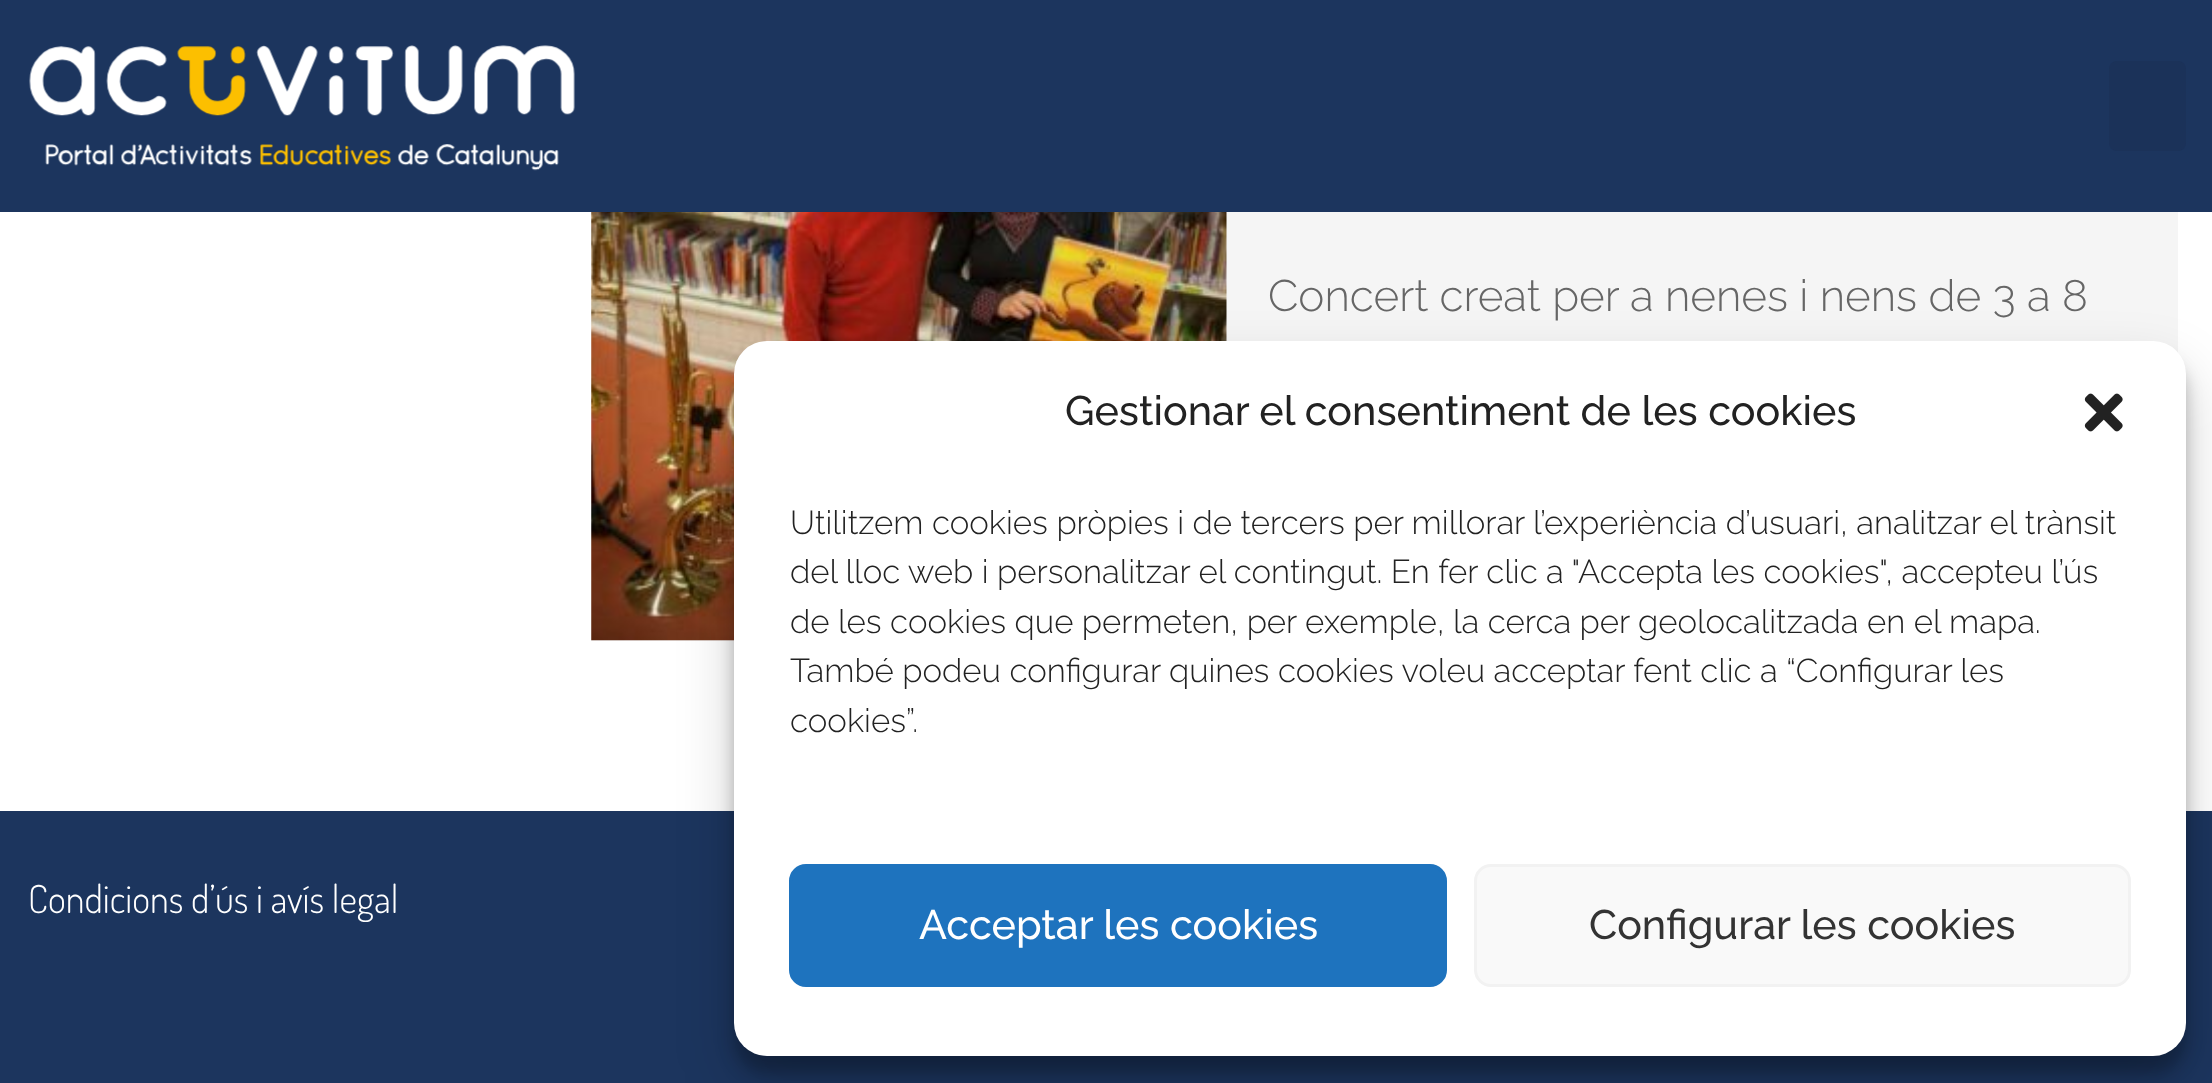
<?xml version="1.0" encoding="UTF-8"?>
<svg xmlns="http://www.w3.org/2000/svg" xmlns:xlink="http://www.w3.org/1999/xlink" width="2212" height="1083">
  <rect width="100%" height="100%" fill="#ffffff" />
  <rect width="2212" height="212" fill="#1c355e" />
  <image x="29" y="45" width="546" height="126" xlink:href="image1.png" />
  <rect x="2109" y="61" width="77" height="90" rx="8" fill="#1b3259" />
  <rect x="591" y="212" width="1587" height="429" fill="#f5f5f5" />
  <image x="591" y="212" width="636" height="429" xlink:href="image2.png" />
  <rect y="811" width="2212" height="272" fill="#1c355e" />
  <rect x="734" y="358" width="1452" height="715" rx="33" fill="#000000" fill-opacity="0.23" filter="blur(8px)" />
  <rect x="734" y="369" width="1452" height="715" rx="33" fill="#000000" fill-opacity="0.19" filter="blur(27.5px)" />
  <rect x="734" y="341" width="1452" height="715" rx="33" fill="#ffffff" />
  <image x="2084" y="393" width="39" height="39" xlink:href="image3.png" />
  <rect x="790.5" y="865.5" width="655" height="120" rx="15.5" fill="#1e73be" stroke="#1e73be" stroke-width="3" />
  <rect x="1475.5" y="865.5" width="654" height="120" rx="15.5" fill="#f9f9f9" stroke="#f2f2f2" stroke-width="3" />
  <text x="1268" y="311" style="font-family: Raleway; font-size: 44px; font-weight: 300; fill: #666666">Concert creat per a nenes i nens de 3 a 8</text>
  <text x="28" y="913" style="font-family: Dosis; font-size: 38.5px; font-weight: 300; fill: #ffffff">Condicions d’ús i avís legal</text>
  <text x="1065" y="425" style="font-family: Raleway; font-size: 41.25px; font-weight: 500; fill: #222222">Gestionar el consentiment de les cookies</text>
  <text x="790" y="534" style="font-family: Raleway; font-size: 33px; font-weight: 300; fill: #222222">Utilitzem cookies pròpies i de tercers per millorar l’experiència d’usuari, analitzar el trànsit</text>
  <text x="790" y="583" style="font-family: Raleway; font-size: 33px; font-weight: 300; fill: #222222">del lloc web i personalitzar el contingut. En fer clic a "Accepta les cookies", accepteu l’ús</text>
  <text x="790" y="633" style="font-family: Raleway; font-size: 33px; font-weight: 300; fill: #222222">de les cookies que permeten, per exemple, la cerca per geolocalitzada en el mapa.</text>
  <text x="790" y="682" style="font-family: Raleway; font-size: 33px; font-weight: 300; fill: #222222">També podeu configurar quines cookies voleu acceptar fent clic a “Configurar les</text>
  <text x="790" y="732" style="font-family: Raleway; font-size: 33px; font-weight: 300; fill: #222222">cookies”.</text>
  <text x="919" y="939" style="font-family: Raleway; font-size: 41.25px; font-weight: 500; fill: #ffffff">Acceptar les cookies</text>
  <text x="1589" y="939" style="font-family: Raleway; font-size: 41.25px; font-weight: 500; fill: #333333">Configurar les cookies</text>
</svg>
